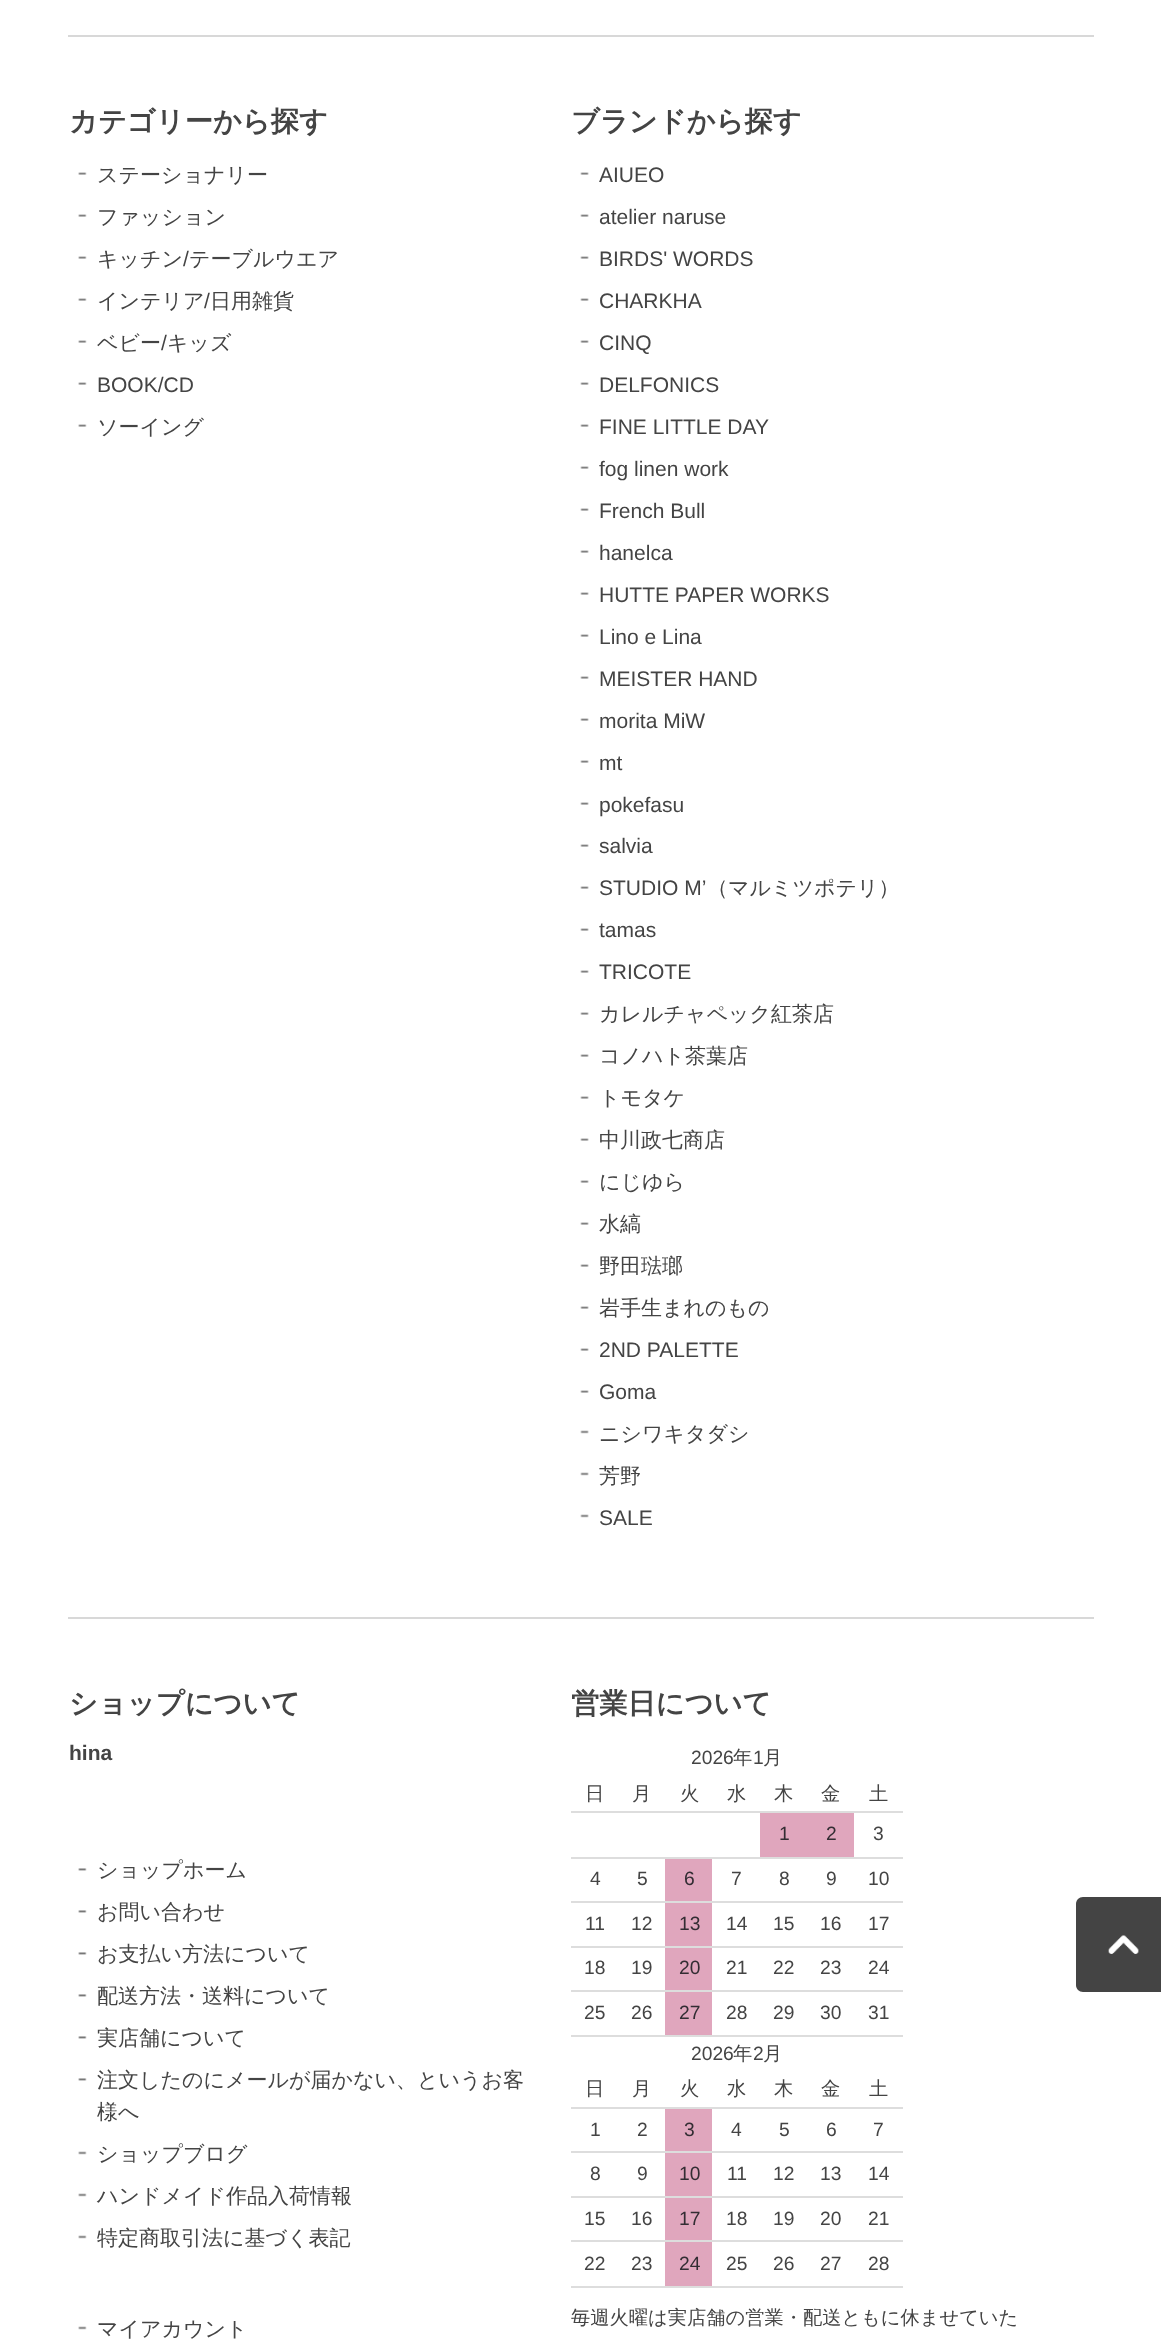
<?xml version="1.0" encoding="UTF-8"?>
<svg xmlns="http://www.w3.org/2000/svg" xmlns:xlink="http://www.w3.org/1999/xlink" width="1161" height="2341">
  <rect width="100%" height="100%" fill="#ffffff" />
  <rect x="68" y="35" width="1026" height="2" fill="#d8d8d8" />
  <image x="78" y="172" width="9" height="3" xlink:href="image1.png" />
  <image x="78" y="214" width="9" height="3" xlink:href="image1.png" />
  <image x="78" y="256" width="9" height="3" xlink:href="image1.png" />
  <image x="78" y="298" width="9" height="3" xlink:href="image1.png" />
  <image x="78" y="340" width="9" height="3" xlink:href="image1.png" />
  <image x="78" y="382" width="9" height="3" xlink:href="image1.png" />
  <image x="78" y="424" width="9" height="3" xlink:href="image1.png" />
  <image x="580" y="172" width="9" height="3" xlink:href="image2.png" />
  <image x="580" y="214" width="9" height="3" xlink:href="image2.png" />
  <image x="580" y="256" width="9" height="3" xlink:href="image2.png" />
  <image x="580" y="298" width="9" height="3" xlink:href="image2.png" />
  <image x="580" y="340" width="9" height="3" xlink:href="image2.png" />
  <image x="580" y="382" width="9" height="3" xlink:href="image2.png" />
  <image x="580" y="424" width="9" height="3" xlink:href="image2.png" />
  <image x="580" y="466" width="9" height="3" xlink:href="image2.png" />
  <image x="580" y="508" width="9" height="3" xlink:href="image2.png" />
  <image x="580" y="550" width="9" height="3" xlink:href="image2.png" />
  <image x="580" y="592" width="9" height="3" xlink:href="image2.png" />
  <image x="580" y="634" width="9" height="3" xlink:href="image2.png" />
  <image x="580" y="676" width="9" height="3" xlink:href="image2.png" />
  <image x="580" y="718" width="9" height="3" xlink:href="image2.png" />
  <image x="580" y="760" width="9" height="3" xlink:href="image2.png" />
  <image x="580" y="802" width="9" height="3" xlink:href="image2.png" />
  <image x="580" y="844" width="9" height="3" xlink:href="image2.png" />
  <image x="580" y="886" width="9" height="3" xlink:href="image2.png" />
  <image x="580" y="928" width="9" height="3" xlink:href="image2.png" />
  <image x="580" y="970" width="9" height="3" xlink:href="image2.png" />
  <image x="580" y="1012" width="9" height="3" xlink:href="image2.png" />
  <image x="580" y="1054" width="9" height="3" xlink:href="image2.png" />
  <image x="580" y="1096" width="9" height="3" xlink:href="image2.png" />
  <image x="580" y="1138" width="9" height="3" xlink:href="image2.png" />
  <image x="580" y="1180" width="9" height="3" xlink:href="image2.png" />
  <image x="580" y="1222" width="9" height="3" xlink:href="image2.png" />
  <image x="580" y="1264" width="9" height="3" xlink:href="image2.png" />
  <image x="580" y="1306" width="9" height="3" xlink:href="image2.png" />
  <image x="580" y="1348" width="9" height="3" xlink:href="image2.png" />
  <image x="580" y="1390" width="9" height="3" xlink:href="image2.png" />
  <image x="580" y="1430" width="9" height="4" xlink:href="image3.png" />
  <image x="580" y="1472" width="9" height="4" xlink:href="image3.png" />
  <image x="580" y="1514" width="9" height="4" xlink:href="image3.png" />
  <rect x="68" y="1617" width="1026" height="2" fill="#d8d8d8" />
  <rect x="571" y="1811" width="332" height="2" fill="#dddddd" />
  <rect x="760" y="1813" width="94" height="44" fill="#e0a6bd" />
  <rect x="571" y="1857" width="332" height="2" fill="#dddddd" />
  <rect x="665" y="1859" width="47" height="42" fill="#e0a6bd" />
  <rect x="571" y="1901" width="332" height="2" fill="#dddddd" />
  <rect x="665" y="1903" width="47" height="43" fill="#e0a6bd" />
  <rect x="571" y="1946" width="332" height="2" fill="#dddddd" />
  <rect x="665" y="1948" width="47" height="42" fill="#e0a6bd" />
  <rect x="571" y="1990" width="332" height="2" fill="#dddddd" />
  <rect x="665" y="1992" width="47" height="43" fill="#e0a6bd" />
  <rect x="571" y="2035" width="332" height="2" fill="#dddddd" />
  <rect x="571" y="2107" width="332" height="2" fill="#dddddd" />
  <rect x="665" y="2109" width="47" height="42" fill="#e0a6bd" />
  <rect x="571" y="2151" width="332" height="2" fill="#dddddd" />
  <rect x="665" y="2153" width="47" height="43" fill="#e0a6bd" />
  <rect x="571" y="2196" width="332" height="2" fill="#dddddd" />
  <rect x="665" y="2198" width="47" height="42" fill="#e0a6bd" />
  <rect x="571" y="2240" width="332" height="2" fill="#dddddd" />
  <rect x="665" y="2242" width="47" height="44" fill="#e0a6bd" />
  <rect x="571" y="2286" width="332" height="2" fill="#dddddd" />
  <image x="78" y="1868" width="9" height="3" xlink:href="image4.png" />
  <image x="78" y="1910" width="9" height="3" xlink:href="image4.png" />
  <image x="78" y="1952" width="9" height="3" xlink:href="image4.png" />
  <image x="78" y="1994" width="9" height="3" xlink:href="image4.png" />
  <image x="78" y="2036" width="9" height="3" xlink:href="image4.png" />
  <image x="78" y="2078" width="9" height="3" xlink:href="image4.png" />
  <image x="78" y="2151" width="9" height="4" xlink:href="image5.png" />
  <image x="78" y="2193" width="9" height="4" xlink:href="image5.png" />
  <image x="78" y="2235" width="9" height="4" xlink:href="image5.png" />
  <image x="78" y="2326" width="9" height="4" xlink:href="image5.png" />
  <path d="M 1083 1897 h 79 v 95 h -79 c -4 0 -7 -3 -7 -7 v -81 c 0 -4 3 -7 7 -7 z" fill="#444444" />
  <image x="1108" y="1935" width="31" height="19" xlink:href="image6.png" />
  <text x="69" y="131" style="font-family: WenQuanYi Zen Hei; font-size: 28.25px; font-weight: bold; fill: #444444">カテゴリーから探す</text>
  <text x="97" y="182" style="font-family: WenQuanYi Zen Hei; font-size: 21px; font-weight: 500; fill: #444444">ステーショナリー</text>
  <text x="97" y="224" style="font-family: WenQuanYi Zen Hei; font-size: 21px; font-weight: 500; fill: #444444">ファッション</text>
  <text x="97" y="266" style="font-family: WenQuanYi Zen Hei; font-size: 21px; font-weight: 500; fill: #444444">キッチン</text>
  <text x="183" y="266" style="font-family: Liberation Sans; font-size: 21px; fill: #444444">/</text>
  <text x="189" y="266" style="font-family: WenQuanYi Zen Hei; font-size: 21px; font-weight: 500; fill: #444444">テーブルウエア</text>
  <text x="97" y="308" style="font-family: WenQuanYi Zen Hei; font-size: 21px; font-weight: 500; fill: #444444">インテリア</text>
  <text x="204" y="308" style="font-family: Liberation Sans; font-size: 21px; fill: #444444">/</text>
  <text x="210" y="308" style="font-family: WenQuanYi Zen Hei; font-size: 21px; font-weight: 500; fill: #444444">日用雑貨</text>
  <text x="97" y="350" style="font-family: WenQuanYi Zen Hei; font-size: 21px; font-weight: 500; fill: #444444">ベビー</text>
  <text x="161" y="350" style="font-family: Liberation Sans; font-size: 21px; fill: #444444">/</text>
  <text x="167" y="350" style="font-family: WenQuanYi Zen Hei; font-size: 21px; font-weight: 500; fill: #444444">キッズ</text>
  <text x="97" y="392" style="font-family: Liberation Sans; font-size: 21px; fill: #444444">BOOK/CD</text>
  <text x="97" y="434" style="font-family: WenQuanYi Zen Hei; font-size: 21px; font-weight: 500; fill: #444444">ソーイング</text>
  <text x="571" y="131" style="font-family: WenQuanYi Zen Hei; font-size: 28.25px; font-weight: bold; fill: #444444">ブランドから探す</text>
  <text x="599" y="182" style="font-family: Liberation Sans; font-size: 21px; fill: #444444">AIUEO</text>
  <text x="599" y="224" style="font-family: Liberation Sans; font-size: 21px; fill: #444444">atelier naruse</text>
  <text x="599" y="266" style="font-family: Liberation Sans; font-size: 21px; fill: #444444">BIRDS' WORDS</text>
  <text x="599" y="308" style="font-family: Liberation Sans; font-size: 21px; fill: #444444">CHARKHA</text>
  <text x="599" y="350" style="font-family: Liberation Sans; font-size: 21px; fill: #444444">CINQ</text>
  <text x="599" y="392" style="font-family: Liberation Sans; font-size: 21px; fill: #444444">DELFONICS</text>
  <text x="599" y="434" style="font-family: Liberation Sans; font-size: 21px; fill: #444444">FINE LITTLE DAY</text>
  <text x="599" y="476" style="font-family: Liberation Sans; font-size: 21px; fill: #444444">fog linen work</text>
  <text x="599" y="518" style="font-family: Liberation Sans; font-size: 21px; fill: #444444">French Bull</text>
  <text x="599" y="560" style="font-family: Liberation Sans; font-size: 21px; fill: #444444">hanelca</text>
  <text x="599" y="602" style="font-family: Liberation Sans; font-size: 21px; fill: #444444">HUTTE PAPER WORKS</text>
  <text x="599" y="644" style="font-family: Liberation Sans; font-size: 21px; fill: #444444">Lino e Lina</text>
  <text x="599" y="686" style="font-family: Liberation Sans; font-size: 21px; fill: #444444">MEISTER HAND</text>
  <text x="599" y="728" style="font-family: Liberation Sans; font-size: 21px; fill: #444444">morita MiW</text>
  <text x="599" y="770" style="font-family: Liberation Sans; font-size: 21px; fill: #444444">mt</text>
  <text x="599" y="812" style="font-family: Liberation Sans; font-size: 21px; fill: #444444">pokefasu</text>
  <text x="599" y="853" style="font-family: Liberation Sans; font-size: 21px; fill: #444444">salvia</text>
  <text x="599" y="895" style="font-family: Liberation Sans; font-size: 21px; fill: #444444">STUDIO M’</text>
  <text x="707" y="895" style="font-family: WenQuanYi Zen Hei; font-size: 21px; font-weight: 500; fill: #444444">（マルミツポテリ）</text>
  <text x="599" y="937" style="font-family: Liberation Sans; font-size: 21px; fill: #444444">tamas</text>
  <text x="599" y="979" style="font-family: Liberation Sans; font-size: 21px; fill: #444444">TRICOTE</text>
  <text x="599" y="1021" style="font-family: WenQuanYi Zen Hei; font-size: 21px; font-weight: 500; fill: #444444">カレルチャペック紅茶店</text>
  <text x="599" y="1063" style="font-family: WenQuanYi Zen Hei; font-size: 21px; font-weight: 500; fill: #444444">コノハト茶葉店</text>
  <text x="599" y="1105" style="font-family: WenQuanYi Zen Hei; font-size: 21px; font-weight: 500; fill: #444444">トモタケ</text>
  <text x="599" y="1147" style="font-family: WenQuanYi Zen Hei; font-size: 21px; font-weight: 500; fill: #444444">中川政七商店</text>
  <text x="599" y="1189" style="font-family: WenQuanYi Zen Hei; font-size: 21px; font-weight: 500; fill: #444444">にじゆら</text>
  <text x="599" y="1231" style="font-family: WenQuanYi Zen Hei; font-size: 21px; font-weight: 500; fill: #444444">水縞</text>
  <text x="599" y="1273" style="font-family: WenQuanYi Zen Hei; font-size: 21px; font-weight: 500; fill: #444444">野田琺瑯</text>
  <text x="599" y="1315" style="font-family: WenQuanYi Zen Hei; font-size: 21px; font-weight: 500; fill: #444444">岩手生まれのもの</text>
  <text x="599" y="1357" style="font-family: Liberation Sans; font-size: 21px; fill: #444444">2ND PALETTE</text>
  <text x="599" y="1399" style="font-family: Liberation Sans; font-size: 21px; fill: #444444">Goma</text>
  <text x="599" y="1441" style="font-family: WenQuanYi Zen Hei; font-size: 21px; font-weight: 500; fill: #444444">ニシワキタダシ</text>
  <text x="599" y="1483" style="font-family: WenQuanYi Zen Hei; font-size: 21px; font-weight: 500; fill: #444444">芳野</text>
  <text x="599" y="1525" style="font-family: Liberation Sans; font-size: 21px; fill: #444444">SALE</text>
  <text x="69" y="1713" style="font-family: WenQuanYi Zen Hei; font-size: 28.25px; font-weight: bold; fill: #444444">ショップについて</text>
  <text x="69" y="1760" style="font-family: Liberation Sans; font-size: 21px; font-weight: bold; fill: #444444">hina</text>
  <text x="571" y="1713" style="font-family: WenQuanYi Zen Hei; font-size: 28.25px; font-weight: bold; fill: #444444">営業日について</text>
  <text x="691" y="1764" style="font-family: Liberation Sans; font-size: 19.25px; fill: #444444">2026</text>
  <text x="733" y="1764" style="font-family: WenQuanYi Zen Hei; font-size: 19.25px; font-weight: 500; fill: #444444">年</text>
  <text x="753" y="1764" style="font-family: Liberation Sans; font-size: 19.25px; fill: #444444">1</text>
  <text x="763" y="1764" style="font-family: WenQuanYi Zen Hei; font-size: 19.25px; font-weight: 500; fill: #444444">月</text>
  <text x="585" y="1800" style="font-family: WenQuanYi Zen Hei; font-size: 19.25px; font-weight: 500; fill: #444444">日</text>
  <text x="632" y="1800" style="font-family: WenQuanYi Zen Hei; font-size: 19.25px; font-weight: 500; fill: #444444">月</text>
  <text x="680" y="1800" style="font-family: WenQuanYi Zen Hei; font-size: 19.25px; font-weight: 500; fill: #444444">火</text>
  <text x="727" y="1800" style="font-family: WenQuanYi Zen Hei; font-size: 19.25px; font-weight: 500; fill: #444444">水</text>
  <text x="774" y="1800" style="font-family: WenQuanYi Zen Hei; font-size: 19.25px; font-weight: 500; fill: #444444">木</text>
  <text x="821" y="1800" style="font-family: WenQuanYi Zen Hei; font-size: 19.25px; font-weight: 500; fill: #444444">金</text>
  <text x="869" y="1800" style="font-family: WenQuanYi Zen Hei; font-size: 19.25px; font-weight: 500; fill: #444444">土</text>
  <text x="779" y="1840" style="font-family: Liberation Sans; font-size: 19.25px; fill: #332d33">1</text>
  <text x="826" y="1840" style="font-family: Liberation Sans; font-size: 19.25px; fill: #332d33">2</text>
  <text x="873" y="1840" style="font-family: Liberation Sans; font-size: 19.25px; fill: #444444">3</text>
  <text x="590" y="1885" style="font-family: Liberation Sans; font-size: 19.25px; fill: #444444">4</text>
  <text x="637" y="1885" style="font-family: Liberation Sans; font-size: 19.25px; fill: #444444">5</text>
  <text x="684" y="1885" style="font-family: Liberation Sans; font-size: 19.25px; fill: #332d33">6</text>
  <text x="731" y="1885" style="font-family: Liberation Sans; font-size: 19.25px; fill: #444444">7</text>
  <text x="779" y="1885" style="font-family: Liberation Sans; font-size: 19.25px; fill: #444444">8</text>
  <text x="826" y="1885" style="font-family: Liberation Sans; font-size: 19.25px; fill: #444444">9</text>
  <text x="868" y="1885" style="font-family: Liberation Sans; font-size: 19.25px; fill: #444444">10</text>
  <text x="585" y="1930" style="font-family: Liberation Sans; font-size: 19.25px; fill: #444444">11</text>
  <text x="631" y="1930" style="font-family: Liberation Sans; font-size: 19.25px; fill: #444444">12</text>
  <text x="679" y="1930" style="font-family: Liberation Sans; font-size: 19.25px; fill: #332d33">13</text>
  <text x="726" y="1930" style="font-family: Liberation Sans; font-size: 19.25px; fill: #444444">14</text>
  <text x="773" y="1930" style="font-family: Liberation Sans; font-size: 19.25px; fill: #444444">15</text>
  <text x="820" y="1930" style="font-family: Liberation Sans; font-size: 19.25px; fill: #444444">16</text>
  <text x="868" y="1930" style="font-family: Liberation Sans; font-size: 19.25px; fill: #444444">17</text>
  <text x="584" y="1974" style="font-family: Liberation Sans; font-size: 19.25px; fill: #444444">18</text>
  <text x="631" y="1974" style="font-family: Liberation Sans; font-size: 19.25px; fill: #444444">19</text>
  <text x="679" y="1974" style="font-family: Liberation Sans; font-size: 19.25px; fill: #332d33">20</text>
  <text x="726" y="1974" style="font-family: Liberation Sans; font-size: 19.25px; fill: #444444">21</text>
  <text x="773" y="1974" style="font-family: Liberation Sans; font-size: 19.25px; fill: #444444">22</text>
  <text x="820" y="1974" style="font-family: Liberation Sans; font-size: 19.25px; fill: #444444">23</text>
  <text x="868" y="1974" style="font-family: Liberation Sans; font-size: 19.25px; fill: #444444">24</text>
  <text x="584" y="2019" style="font-family: Liberation Sans; font-size: 19.25px; fill: #444444">25</text>
  <text x="631" y="2019" style="font-family: Liberation Sans; font-size: 19.25px; fill: #444444">26</text>
  <text x="679" y="2019" style="font-family: Liberation Sans; font-size: 19.25px; fill: #332d33">27</text>
  <text x="726" y="2019" style="font-family: Liberation Sans; font-size: 19.25px; fill: #444444">28</text>
  <text x="773" y="2019" style="font-family: Liberation Sans; font-size: 19.25px; fill: #444444">29</text>
  <text x="820" y="2019" style="font-family: Liberation Sans; font-size: 19.25px; fill: #444444">30</text>
  <text x="868" y="2019" style="font-family: Liberation Sans; font-size: 19.25px; fill: #444444">31</text>
  <text x="691" y="2060" style="font-family: Liberation Sans; font-size: 19.25px; fill: #444444">2026</text>
  <text x="733" y="2060" style="font-family: WenQuanYi Zen Hei; font-size: 19.25px; font-weight: 500; fill: #444444">年</text>
  <text x="753" y="2060" style="font-family: Liberation Sans; font-size: 19.25px; fill: #444444">2</text>
  <text x="763" y="2060" style="font-family: WenQuanYi Zen Hei; font-size: 19.25px; font-weight: 500; fill: #444444">月</text>
  <text x="585" y="2095" style="font-family: WenQuanYi Zen Hei; font-size: 19.25px; font-weight: 500; fill: #444444">日</text>
  <text x="632" y="2095" style="font-family: WenQuanYi Zen Hei; font-size: 19.25px; font-weight: 500; fill: #444444">月</text>
  <text x="680" y="2095" style="font-family: WenQuanYi Zen Hei; font-size: 19.25px; font-weight: 500; fill: #444444">火</text>
  <text x="727" y="2095" style="font-family: WenQuanYi Zen Hei; font-size: 19.25px; font-weight: 500; fill: #444444">水</text>
  <text x="774" y="2095" style="font-family: WenQuanYi Zen Hei; font-size: 19.25px; font-weight: 500; fill: #444444">木</text>
  <text x="821" y="2095" style="font-family: WenQuanYi Zen Hei; font-size: 19.25px; font-weight: 500; fill: #444444">金</text>
  <text x="869" y="2095" style="font-family: WenQuanYi Zen Hei; font-size: 19.25px; font-weight: 500; fill: #444444">土</text>
  <text x="590" y="2136" style="font-family: Liberation Sans; font-size: 19.25px; fill: #444444">1</text>
  <text x="637" y="2136" style="font-family: Liberation Sans; font-size: 19.25px; fill: #444444">2</text>
  <text x="684" y="2136" style="font-family: Liberation Sans; font-size: 19.25px; fill: #332d33">3</text>
  <text x="731" y="2136" style="font-family: Liberation Sans; font-size: 19.25px; fill: #444444">4</text>
  <text x="779" y="2136" style="font-family: Liberation Sans; font-size: 19.25px; fill: #444444">5</text>
  <text x="826" y="2136" style="font-family: Liberation Sans; font-size: 19.25px; fill: #444444">6</text>
  <text x="873" y="2136" style="font-family: Liberation Sans; font-size: 19.25px; fill: #444444">7</text>
  <text x="590" y="2180" style="font-family: Liberation Sans; font-size: 19.25px; fill: #444444">8</text>
  <text x="637" y="2180" style="font-family: Liberation Sans; font-size: 19.25px; fill: #444444">9</text>
  <text x="679" y="2180" style="font-family: Liberation Sans; font-size: 19.25px; fill: #332d33">10</text>
  <text x="727" y="2180" style="font-family: Liberation Sans; font-size: 19.25px; fill: #444444">11</text>
  <text x="773" y="2180" style="font-family: Liberation Sans; font-size: 19.25px; fill: #444444">12</text>
  <text x="820" y="2180" style="font-family: Liberation Sans; font-size: 19.25px; fill: #444444">13</text>
  <text x="868" y="2180" style="font-family: Liberation Sans; font-size: 19.25px; fill: #444444">14</text>
  <text x="584" y="2225" style="font-family: Liberation Sans; font-size: 19.25px; fill: #444444">15</text>
  <text x="631" y="2225" style="font-family: Liberation Sans; font-size: 19.25px; fill: #444444">16</text>
  <text x="679" y="2225" style="font-family: Liberation Sans; font-size: 19.25px; fill: #332d33">17</text>
  <text x="726" y="2225" style="font-family: Liberation Sans; font-size: 19.25px; fill: #444444">18</text>
  <text x="773" y="2225" style="font-family: Liberation Sans; font-size: 19.25px; fill: #444444">19</text>
  <text x="820" y="2225" style="font-family: Liberation Sans; font-size: 19.25px; fill: #444444">20</text>
  <text x="868" y="2225" style="font-family: Liberation Sans; font-size: 19.25px; fill: #444444">21</text>
  <text x="584" y="2270" style="font-family: Liberation Sans; font-size: 19.25px; fill: #444444">22</text>
  <text x="631" y="2270" style="font-family: Liberation Sans; font-size: 19.25px; fill: #444444">23</text>
  <text x="679" y="2270" style="font-family: Liberation Sans; font-size: 19.25px; fill: #332d33">24</text>
  <text x="726" y="2270" style="font-family: Liberation Sans; font-size: 19.25px; fill: #444444">25</text>
  <text x="773" y="2270" style="font-family: Liberation Sans; font-size: 19.25px; fill: #444444">26</text>
  <text x="820" y="2270" style="font-family: Liberation Sans; font-size: 19.25px; fill: #444444">27</text>
  <text x="868" y="2270" style="font-family: Liberation Sans; font-size: 19.25px; fill: #444444">28</text>
  <text x="571" y="2324" style="font-family: WenQuanYi Zen Hei; font-size: 19.25px; font-weight: 500; fill: #444444">毎週火曜は実店舗の営業・配送ともに休ませていた</text>
  <text x="97" y="1877" style="font-family: WenQuanYi Zen Hei; font-size: 21px; font-weight: 500; fill: #444444">ショップホーム</text>
  <text x="97" y="1919" style="font-family: WenQuanYi Zen Hei; font-size: 21px; font-weight: 500; fill: #444444">お問い合わせ</text>
  <text x="97" y="1961" style="font-family: WenQuanYi Zen Hei; font-size: 21px; font-weight: 500; fill: #444444">お支払い方法について</text>
  <text x="97" y="2003" style="font-family: WenQuanYi Zen Hei; font-size: 21px; font-weight: 500; fill: #444444">配送方法・送料について</text>
  <text x="97" y="2045" style="font-family: WenQuanYi Zen Hei; font-size: 21px; font-weight: 500; fill: #444444">実店舗について</text>
  <text x="97" y="2087" style="font-family: WenQuanYi Zen Hei; font-size: 21px; font-weight: 500; fill: #444444">注文したのにメールが届かない、というお客</text>
  <text x="97" y="2119" style="font-family: WenQuanYi Zen Hei; font-size: 21px; font-weight: 500; fill: #444444">様へ</text>
  <text x="97" y="2161" style="font-family: WenQuanYi Zen Hei; font-size: 21px; font-weight: 500; fill: #444444">ショップブログ</text>
  <text x="97" y="2203" style="font-family: WenQuanYi Zen Hei; font-size: 21px; font-weight: 500; fill: #444444">ハンドメイド作品入荷情報</text>
  <text x="97" y="2245" style="font-family: WenQuanYi Zen Hei; font-size: 21px; font-weight: 500; fill: #444444">特定商取引法に基づく表記</text>
  <text x="97" y="2336" style="font-family: WenQuanYi Zen Hei; font-size: 21px; font-weight: 500; fill: #444444">マイアカウント</text>
</svg>
